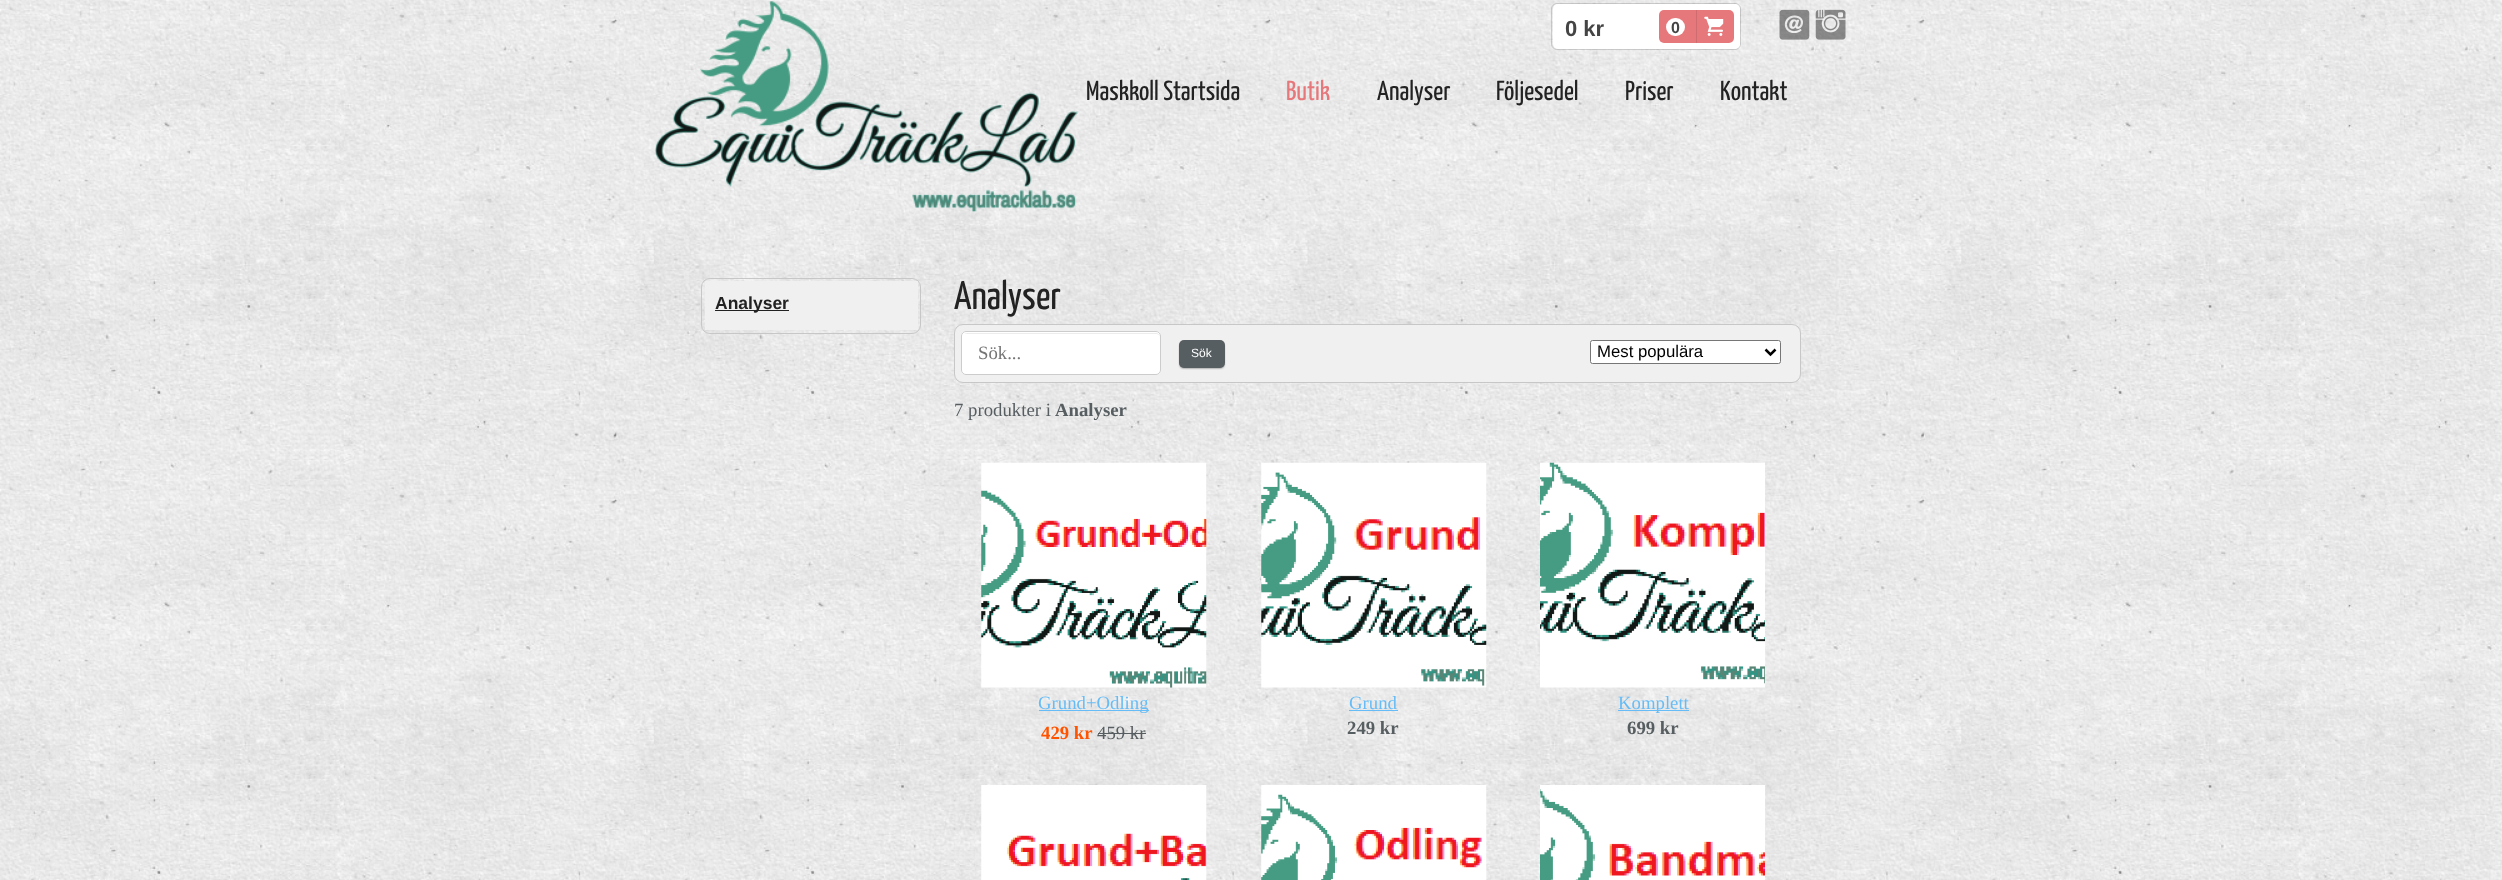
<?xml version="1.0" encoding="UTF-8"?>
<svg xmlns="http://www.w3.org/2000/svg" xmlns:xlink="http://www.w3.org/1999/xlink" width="2502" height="880">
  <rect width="100%" height="100%" fill="#ffffff" />
  <image x="0" y="0" width="2502" height="880" xlink:href="image1.png" />
  <image x="654" y="1" width="425" height="211" xlink:href="image2.png" />
  <rect x="1551.5" y="3.5" width="189" height="46" rx="5.5" fill="none" stroke="#000000" stroke-opacity="0.15" />
  <rect x="1553" y="4" width="187" height="45" rx="5" fill="#ffffff" />
  <rect x="1659" y="10" width="75" height="33" rx="5" fill="#e6787c" />
  <rect x="1696" y="10" width="1" height="33" fill="#cf6c70" />
  <rect x="1666" y="18" width="19" height="18" rx="9" fill="#ffffff" />
  <image x="1704" y="16" width="20" height="20" xlink:href="image3.png" />
  <image x="1779" y="9" width="31" height="31" xlink:href="image4.png" />
  <image x="1815" y="9" width="31" height="31" xlink:href="image5.png" />
  <rect x="701.5" y="278.5" width="219" height="55" rx="8.5" fill="none" stroke="#c7c7c7" />
  <rect x="705" y="281" width="213" height="49" fill="#f0f0f0" />
  <rect x="715" y="310" width="74" height="1" fill="#222222" />
  <rect x="954.5" y="324.5" width="846" height="58" rx="8.5" fill="#f0f0f0" stroke="#c7c7c7" />
  <rect x="961" y="331" width="200" height="44" rx="5" fill="#ffffff" />
  <path d="M 966 334 h 190 c 2 0 4 1 4 4 v -1 c 0 -2 -2 -4 -4 -4 h -189 c -1 0 -2 1 -3 1 z" fill="#ececec" />
  <rect x="961.5" y="331.5" width="199" height="43" rx="4.5" fill="none" stroke="#cccccc" />
  <rect x="1180" y="343" width="44" height="25" rx="4" fill="#000000" fill-opacity="0.6" filter="blur(1px)" />
  <rect x="1179" y="340" width="46" height="28" rx="5" fill="#575e61" />
  <rect x="1590.5" y="340.5" width="190" height="23" rx="2" fill="#ffffff" stroke="#767676" />
  <path d="M 1765.5 349.5 l 5 5 l 5 -5" fill="none" stroke="#000000" stroke-width="2.5" />
  <image x="981" y="462" width="226" height="226" xlink:href="image6.png" />
  <rect x="1039" y="710" width="110" height="1" fill="#66bcf6" />
  <rect x="1098" y="733" width="48" height="1" fill="#575e61" />
  <image x="1261" y="462" width="226" height="226" xlink:href="image7.png" />
  <rect x="1349" y="710" width="49" height="1" fill="#66bcf6" />
  <image x="1540" y="462" width="225" height="226" xlink:href="image8.png" />
  <rect x="1618" y="710" width="71" height="1" fill="#66bcf6" />
  <image x="981" y="785" width="226" height="95" xlink:href="image9.png" />
  <image x="1261" y="785" width="226" height="95" xlink:href="image10.png" />
  <image x="1540" y="785" width="225" height="95" xlink:href="image11.png" />
  <text x="1565" y="36" style="font-family: Liberation Sans; font-size: 22px; font-weight: bold; fill: #444444">0 kr</text>
  <text x="1671" y="33" style="font-family: Liberation Sans; font-size: 16px; font-weight: bold; fill: #444444">0</text>
  <text x="1086" y="100" style="font-family: Yanone Kaffeesatz; font-size: 27.5px; font-weight: 200; fill: #222222">Maskkoll Startsida</text>
  <text x="1286" y="100" style="font-family: Yanone Kaffeesatz; font-size: 27.5px; font-weight: 200; fill: #e6787c">Butik</text>
  <text x="1377" y="100" style="font-family: Yanone Kaffeesatz; font-size: 27.5px; font-weight: 200; fill: #222222">Analyser</text>
  <text x="1496" y="100" style="font-family: Yanone Kaffeesatz; font-size: 27.5px; font-weight: 200; fill: #222222">Följesedel</text>
  <text x="1625" y="100" style="font-family: Yanone Kaffeesatz; font-size: 27.5px; font-weight: 200; fill: #222222">Priser</text>
  <text x="1720" y="100" style="font-family: Yanone Kaffeesatz; font-size: 27.5px; font-weight: 200; fill: #222222">Kontakt</text>
  <text x="715" y="309" style="font-family: Liberation Sans; font-size: 17.5px; font-weight: bold; fill: #222222">Analyser</text>
  <text x="954" y="309" style="font-family: Yanone Kaffeesatz; font-size: 40px; font-weight: 200; fill: #222222">Analyser</text>
  <text x="978" y="359" style="font-family: Liberation Serif; font-size: 18.75px; fill: #757575">Sök...</text>
  <text x="1191" y="357" style="font-family: Liberation Sans; font-size: 12px; fill: #ffffff">Sök</text>
  <text x="1597" y="357" style="font-family: Liberation Sans; font-size: 16.75px; fill: #000000">Mest populära</text>
  <text x="954" y="416" style="font-family: Liberation Serif; font-size: 18.75px; fill: #575e61">7 produkter i</text>
  <text x="1055" y="416" style="font-family: Liberation Serif; font-size: 18.75px; font-weight: bold; fill: #575e61">Analyser</text>
  <text x="1038" y="709" style="font-family: Liberation Serif; font-size: 18.75px; fill: #66bcf6">Grund+Odling</text>
  <text x="1041" y="739" style="font-family: Liberation Serif; font-size: 18.75px; font-weight: bold; fill: #ff5300">429 kr</text>
  <text x="1097" y="739" style="font-family: Liberation Serif; font-size: 18.75px; fill: #575e61">459 kr</text>
  <text x="1349" y="709" style="font-family: Liberation Serif; font-size: 18.75px; fill: #66bcf6">Grund</text>
  <text x="1347" y="734" style="font-family: Liberation Serif; font-size: 18.75px; font-weight: bold; fill: #575e61">249 kr</text>
  <text x="1618" y="709" style="font-family: Liberation Serif; font-size: 18.75px; fill: #66bcf6">Komplett</text>
  <text x="1627" y="734" style="font-family: Liberation Serif; font-size: 18.75px; font-weight: bold; fill: #575e61">699 kr</text>
</svg>
